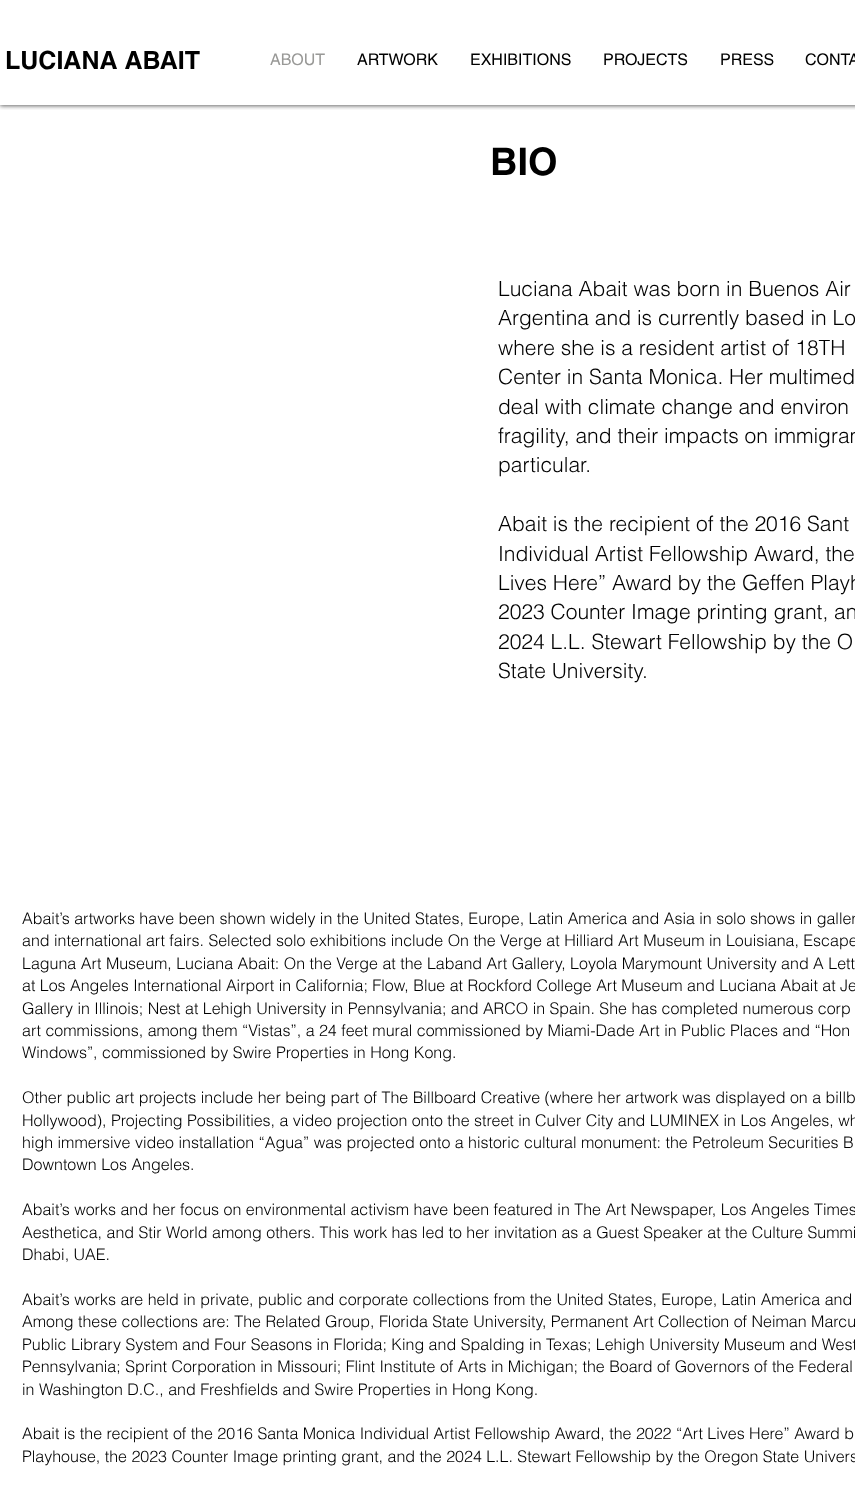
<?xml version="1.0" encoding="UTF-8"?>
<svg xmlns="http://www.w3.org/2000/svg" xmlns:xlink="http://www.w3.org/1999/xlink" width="855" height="1500">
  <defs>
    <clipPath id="clip1"><rect x="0" y="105" width="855" height="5" /></clipPath>
  </defs>
  <rect width="100%" height="100%" fill="#ffffff" />
  <g clip-path="url(#clip1)">
    <rect y="1" width="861" height="105" fill="#000000" fill-opacity="0.6" filter="blur(2px)" />
  </g>
  <text x="5" y="69" style="font-family: helvetica; font-size: 25px; font-weight: bold; fill: #000000">LUCIANA ABAIT</text>
  <text x="270" y="65" style="font-family: helvetica; font-size: 16px; fill: #999997">ABOUT</text>
  <text x="357" y="65" style="font-family: helvetica; font-size: 16px; fill: #000000">ARTWORK</text>
  <text x="470" y="65" style="font-family: helvetica; font-size: 16px; fill: #000000">EXHIBITIONS</text>
  <text x="603" y="65" style="font-family: helvetica; font-size: 16px; fill: #000000">PROJECTS</text>
  <text x="720" y="65" style="font-family: helvetica; font-size: 16px; fill: #000000">PRESS</text>
  <text x="805" y="65" style="font-family: helvetica; font-size: 16px; fill: #000000">CONTA</text>
  <text x="490" y="175" style="font-family: helvetica; font-size: 38px; font-weight: bold; fill: #000000">BIO</text>
  <text x="498" y="296" style="font-family: helvetica; font-size: 21px; font-weight: 300; fill: #000000">Luciana Abait was born in Buenos Air</text>
  <text x="498" y="325" style="font-family: helvetica; font-size: 21px; font-weight: 300; fill: #000000">Argentina and is currently based in Lo</text>
  <text x="498" y="355" style="font-family: helvetica; font-size: 21px; font-weight: 300; fill: #000000">where she is a resident artist of 18TH</text>
  <text x="498" y="384" style="font-family: helvetica; font-size: 21px; font-weight: 300; fill: #000000">Center in Santa Monica. Her multimed</text>
  <text x="498" y="414" style="font-family: helvetica; font-size: 21px; font-weight: 300; fill: #000000">deal with climate change and environ</text>
  <text x="498" y="443" style="font-family: helvetica; font-size: 21px; font-weight: 300; fill: #000000">fragility, and their impacts on immigran</text>
  <text x="498" y="472" style="font-family: helvetica; font-size: 21px; font-weight: 300; fill: #000000">particular.</text>
  <text x="498" y="531" style="font-family: helvetica; font-size: 21px; font-weight: 300; fill: #000000">Abait is the recipient of the 2016 Sant</text>
  <text x="498" y="561" style="font-family: helvetica; font-size: 21px; font-weight: 300; fill: #000000">Individual Artist Fellowship Award, the</text>
  <text x="498" y="590" style="font-family: helvetica; font-size: 21px; font-weight: 300; fill: #000000">Lives Here” Award by the Geffen Playh</text>
  <text x="498" y="619" style="font-family: helvetica; font-size: 21px; font-weight: 300; fill: #000000">2023 Counter Image printing grant, an</text>
  <text x="498" y="649" style="font-family: helvetica; font-size: 21px; font-weight: 300; fill: #000000">2024 L.L. Stewart Fellowship by the O</text>
  <text x="498" y="678" style="font-family: helvetica; font-size: 21px; font-weight: 300; fill: #000000">State University.</text>
  <text x="22" y="924" style="font-family: helvetica; font-size: 16px; font-weight: 300; fill: #000000">Abait’s artworks have been shown widely in the United States, Europe, Latin America and Asia in solo shows in galler</text>
  <text x="22" y="946" style="font-family: helvetica; font-size: 16px; font-weight: 300; fill: #000000">and international art fairs. Selected solo exhibitions include On the Verge at Hilliard Art Museum in Louisiana, Escape</text>
  <text x="22" y="969" style="font-family: helvetica; font-size: 16px; font-weight: 300; fill: #000000">Laguna Art Museum, Luciana Abait: On the Verge at the Laband Art Gallery, Loyola Marymount University and A Lett</text>
  <text x="22" y="991" style="font-family: helvetica; font-size: 16px; font-weight: 300; fill: #000000">at Los Angeles International Airport in California; Flow, Blue at Rockford College Art Museum and Luciana Abait at Je</text>
  <text x="22" y="1014" style="font-family: helvetica; font-size: 16px; font-weight: 300; fill: #000000">Gallery in Illinois; Nest at Lehigh University in Pennsylvania; and ARCO in Spain. She has completed numerous corp</text>
  <text x="22" y="1036" style="font-family: helvetica; font-size: 16px; font-weight: 300; fill: #000000">art commissions, among them “Vistas”, a 24 feet mural commissioned by Miami-Dade Art in Public Places and “Hon</text>
  <text x="22" y="1058" style="font-family: helvetica; font-size: 16px; font-weight: 300; fill: #000000">Windows”, commissioned by Swire Properties in Hong Kong.</text>
  <text x="22" y="1103" style="font-family: helvetica; font-size: 16px; font-weight: 300; fill: #000000">Other public art projects include her being part of The Billboard Creative (where her artwork was displayed on a billb</text>
  <text x="22" y="1126" style="font-family: helvetica; font-size: 16px; font-weight: 300; fill: #000000">Hollywood), Projecting Possibilities, a video projection onto the street in Culver City and LUMINEX in Los Angeles, wh</text>
  <text x="22" y="1148" style="font-family: helvetica; font-size: 16px; font-weight: 300; fill: #000000">high immersive video installation “Agua” was projected onto a historic cultural monument: the Petroleum Securities B</text>
  <text x="22" y="1170" style="font-family: helvetica; font-size: 16px; font-weight: 300; fill: #000000">Downtown Los Angeles.</text>
  <text x="22" y="1215" style="font-family: helvetica; font-size: 16px; font-weight: 300; fill: #000000">Abait’s works and her focus on environmental activism have been featured in The Art Newspaper, Los Angeles Times</text>
  <text x="22" y="1238" style="font-family: helvetica; font-size: 16px; font-weight: 300; fill: #000000">Aesthetica, and Stir World among others. This work has led to her invitation as a Guest Speaker at the Culture Summi</text>
  <text x="22" y="1260" style="font-family: helvetica; font-size: 16px; font-weight: 300; fill: #000000">Dhabi, UAE.</text>
  <text x="22" y="1305" style="font-family: helvetica; font-size: 16px; font-weight: 300; fill: #000000">Abait’s works are held in private, public and corporate collections from the United States, Europe, Latin America and</text>
  <text x="22" y="1327" style="font-family: helvetica; font-size: 16px; font-weight: 300; fill: #000000">Among these collections are: The Related Group, Florida State University, Permanent Art Collection of Neiman Marcu</text>
  <text x="22" y="1350" style="font-family: helvetica; font-size: 16px; font-weight: 300; fill: #000000">Public Library System and Four Seasons in Florida; King and Spalding in Texas; Lehigh University Museum and West</text>
  <text x="22" y="1372" style="font-family: helvetica; font-size: 16px; font-weight: 300; fill: #000000">Pennsylvania; Sprint Corporation in Missouri; Flint Institute of Arts in Michigan; the Board of Governors of the Federal</text>
  <text x="22" y="1395" style="font-family: helvetica; font-size: 16px; font-weight: 300; fill: #000000">in Washington D.C., and Freshfields and Swire Properties in Hong Kong.</text>
  <text x="22" y="1439" style="font-family: helvetica; font-size: 16px; font-weight: 300; fill: #000000">Abait is the recipient of the 2016 Santa Monica Individual Artist Fellowship Award, the 2022 “Art Lives Here” Award b</text>
  <text x="22" y="1462" style="font-family: helvetica; font-size: 16px; font-weight: 300; fill: #000000">Playhouse, the 2023 Counter Image printing grant, and the 2024 L.L. Stewart Fellowship by the Oregon State Univers</text>
</svg>
